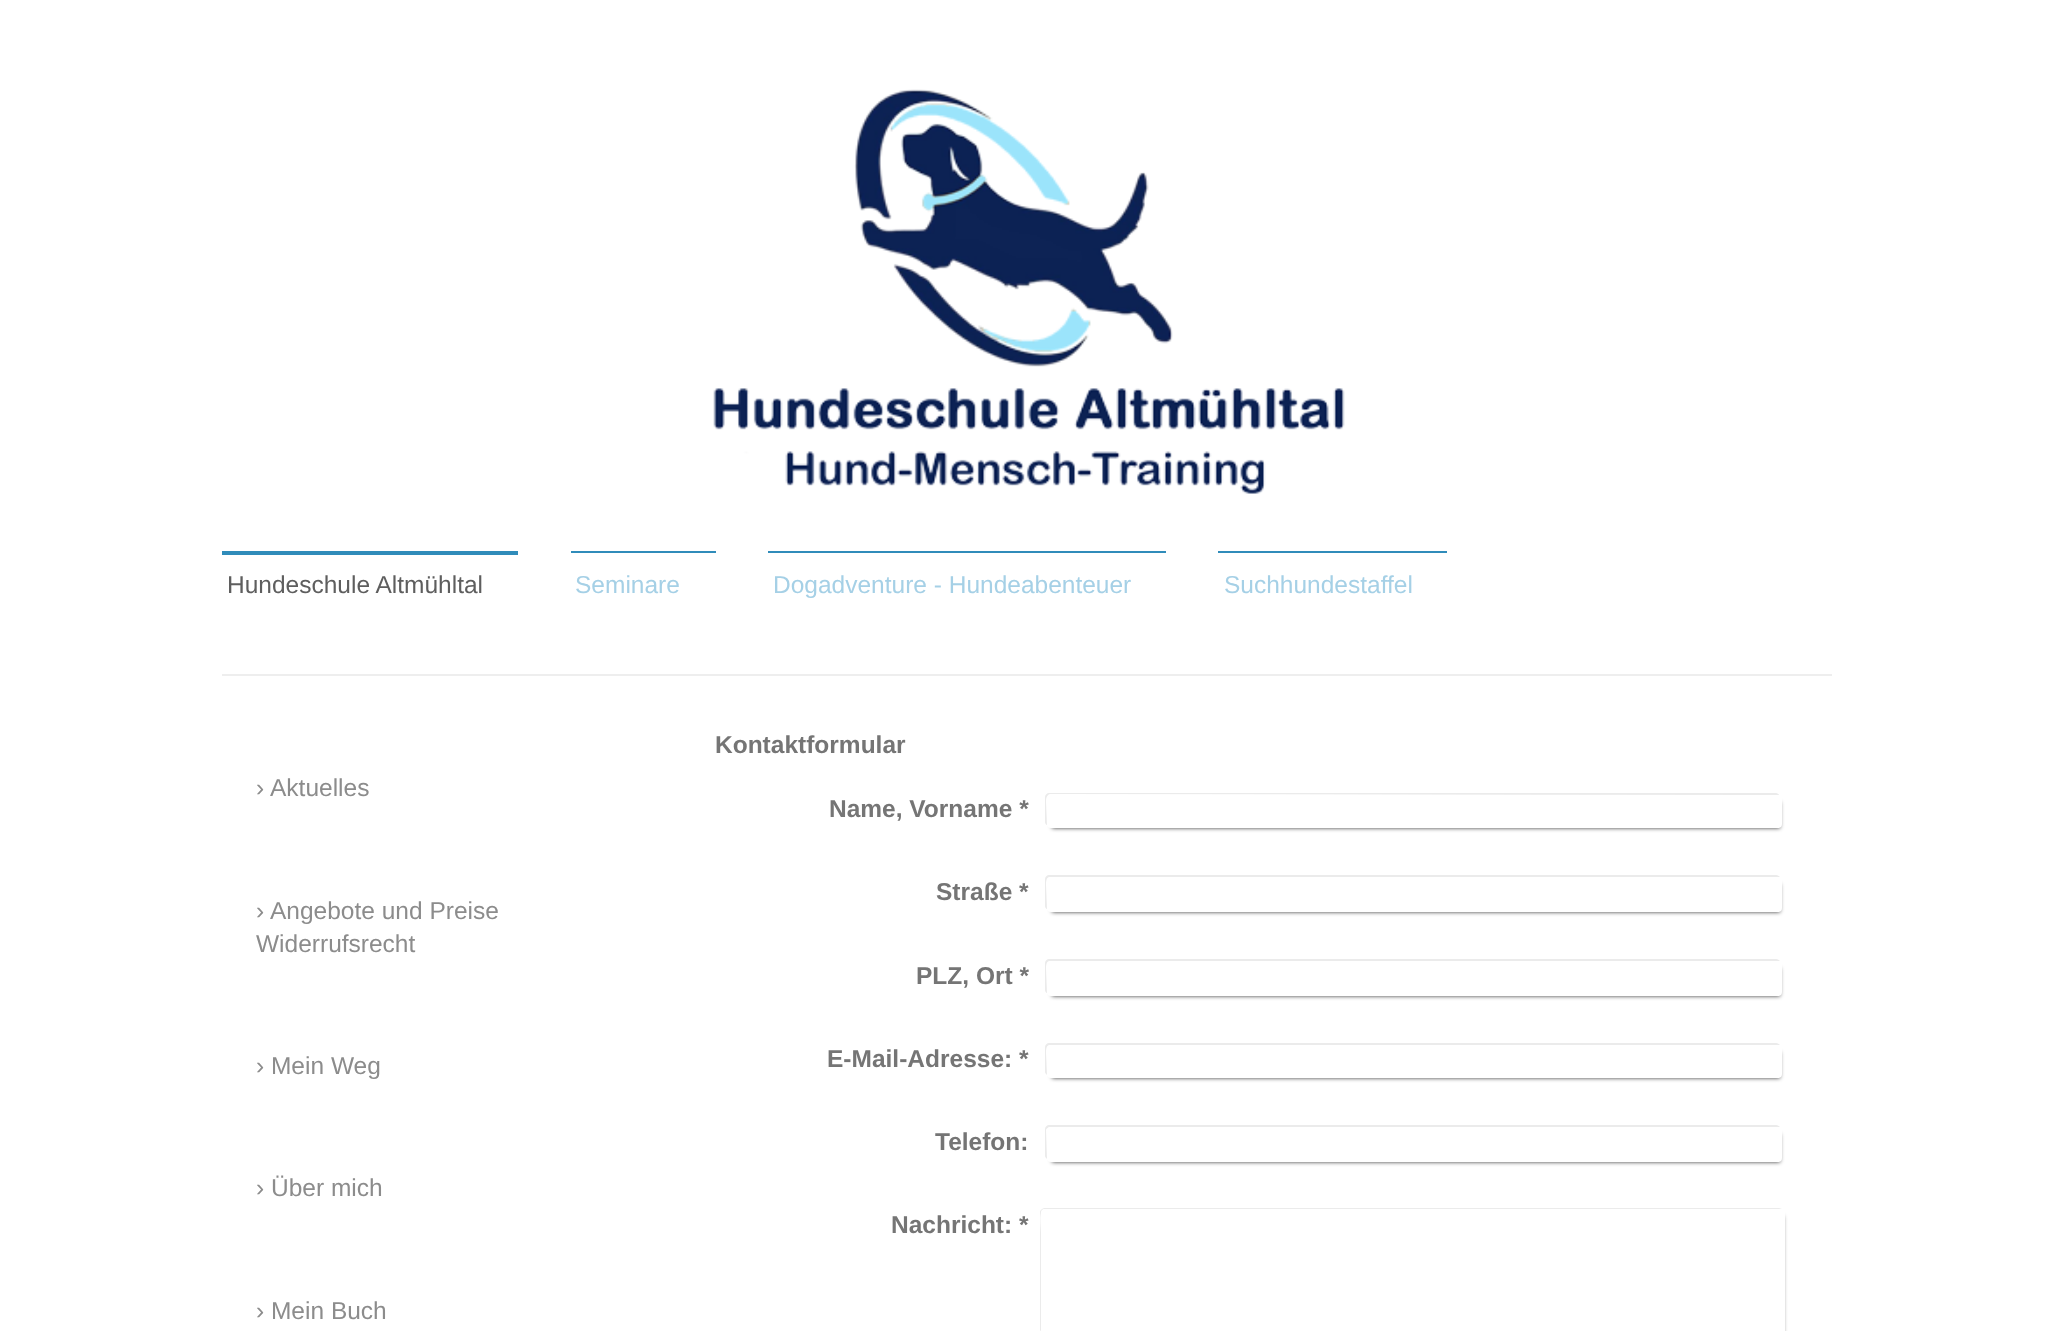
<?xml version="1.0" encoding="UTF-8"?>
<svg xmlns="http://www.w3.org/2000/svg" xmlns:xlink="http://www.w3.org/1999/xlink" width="2052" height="1331">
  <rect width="100%" height="100%" fill="#ffffff" />
  <image x="713" y="89" width="632" height="405" xlink:href="image1.png" />
  <rect x="222" y="551" width="296" height="4" fill="#308cba" />
  <rect x="571" y="551" width="145" height="2" fill="#308cba" />
  <rect x="768" y="551" width="398" height="2" fill="#308cba" />
  <rect x="1218" y="551" width="229" height="2" fill="#308cba" />
  <rect x="222" y="674" width="1610" height="2" fill="#eeeeee" />
  <path d="M 1049 793 c -2 0 -4 2 -4 4 v 25 c 0 1 1 3 2 3 l -1 -23 c 0 -2 0 -7 4 -8 l 729 1 c 0 -1 -2 -2 -3 -2 z" fill="#ebebeb" />
  <rect x="1052" y="802" width="728" height="26" fill="#000000" fill-opacity="0.8" filter="blur(2px)" />
  <rect x="1047" y="795" width="735" height="33" rx="4" fill="#ffffff" />
  <path d="M 1049 875 c -2 0 -4 2 -4 4 v 27 c 0 1 1 3 2 3 l -1 -24 c 0 -3 0 -8 4 -8 h 730 c -1 -1 -2 -2 -4 -2 z" fill="#ebebeb" />
  <rect x="1052" y="884" width="728" height="28" fill="#000000" fill-opacity="0.8" filter="blur(2px)" />
  <rect x="1047" y="877" width="735" height="35" rx="4" fill="#ffffff" />
  <path d="M 1049 959 c -2 0 -4 2 -4 4 v 27 c 0 1 1 3 2 3 l -1 -24 c 0 -3 0 -8 4 -8 h 730 c -1 -1 -2 -2 -4 -2 z" fill="#ebebeb" />
  <rect x="1052" y="968" width="728" height="28" fill="#000000" fill-opacity="0.8" filter="blur(2px)" />
  <rect x="1047" y="961" width="735" height="35" rx="4" fill="#ffffff" />
  <path d="M 1049 1043 c -2 0 -4 2 -4 4 v 25 c 0 1 1 2 2 3 l -1 -22 c 0 -3 0 -8 4 -8 h 730 c -1 -1 -2 -2 -4 -2 z" fill="#ebebeb" />
  <rect x="1052" y="1052" width="728" height="26" fill="#000000" fill-opacity="0.8" filter="blur(2px)" />
  <rect x="1047" y="1045" width="735" height="33" rx="4" fill="#ffffff" />
  <path d="M 1049 1125 c -2 0 -4 2 -4 4 v 27 c 0 1 1 2 2 3 l -1 -29 c 0 -1 2 -3 4 -3 h 728 h 2 c -1 -1 -2 -2 -4 -2 z" fill="#ebebeb" />
  <rect x="1052" y="1134" width="728" height="28" fill="#000000" fill-opacity="0.8" filter="blur(2px)" />
  <rect x="1047" y="1127" width="735" height="35" rx="4" fill="#ffffff" />
  <path d="M 1044 1208 l -2 1 l -2 2 v 119 l 2 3 l -1 -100 c 0 -7 -3 -24 4 -24 h 737 l -3 -1 z" fill="#ebebeb" />
  <rect x="1047" y="1216" width="736" height="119" fill="#000000" fill-opacity="0.8" filter="blur(2px)" />
  <rect x="1041" y="1209" width="744" height="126" rx="4" fill="#ffffff" />
  <text x="227" y="593" style="font-family: Liberation Sans; font-size: 24.5px; fill: #5e5e5e">Hundeschule Altmühltal</text>
  <text x="575" y="593" style="font-family: Liberation Sans; font-size: 24.5px; fill: #a5d0e6">Seminare</text>
  <text x="773" y="593" style="font-family: Liberation Sans; font-size: 24.5px; fill: #a5d0e6">Dogadventure - Hundeabenteuer</text>
  <text x="1224" y="593" style="font-family: Liberation Sans; font-size: 24.5px; fill: #a5d0e6">Suchhundestaffel</text>
  <text x="256" y="796" style="font-family: Liberation Sans; font-size: 24.5px; fill: #8c8c8c">›</text>
  <text x="270" y="796" style="font-family: Liberation Sans; font-size: 24.5px; fill: #8c8c8c">Aktuelles</text>
  <text x="256" y="919" style="font-family: Liberation Sans; font-size: 24.5px; fill: #8c8c8c">›</text>
  <text x="270" y="919" style="font-family: Liberation Sans; font-size: 24.5px; fill: #8c8c8c">Angebote und Preise</text>
  <text x="256" y="952" style="font-family: Liberation Sans; font-size: 24.5px; fill: #8c8c8c">Widerrufsrecht</text>
  <text x="256" y="1074" style="font-family: Liberation Sans; font-size: 24.5px; fill: #8c8c8c">› Mein Weg</text>
  <text x="256" y="1196" style="font-family: Liberation Sans; font-size: 24.5px; fill: #8c8c8c">› Über mich</text>
  <text x="256" y="1319" style="font-family: Liberation Sans; font-size: 24.5px; fill: #8c8c8c">› Mein Buch</text>
  <text x="715" y="753" style="font-family: Liberation Sans; font-size: 24.5px; font-weight: bold; fill: #757575">Kontaktformular</text>
  <text x="829" y="817" style="font-family: Liberation Sans; font-size: 24.5px; font-weight: bold; fill: #757575">Name, Vorname *</text>
  <text x="936" y="900" style="font-family: Liberation Sans; font-size: 24.5px; font-weight: bold; fill: #757575">Straße *</text>
  <text x="916" y="984" style="font-family: Liberation Sans; font-size: 24.5px; font-weight: bold; fill: #757575">PLZ, Ort *</text>
  <text x="827" y="1067" style="font-family: Liberation Sans; font-size: 24.5px; font-weight: bold; fill: #757575">E-Mail-Adresse: *</text>
  <text x="935" y="1150" style="font-family: Liberation Sans; font-size: 24.5px; font-weight: bold; fill: #757575">Telefon:</text>
  <text x="891" y="1233" style="font-family: Liberation Sans; font-size: 24.5px; font-weight: bold; fill: #757575">Nachricht: *</text>
</svg>
